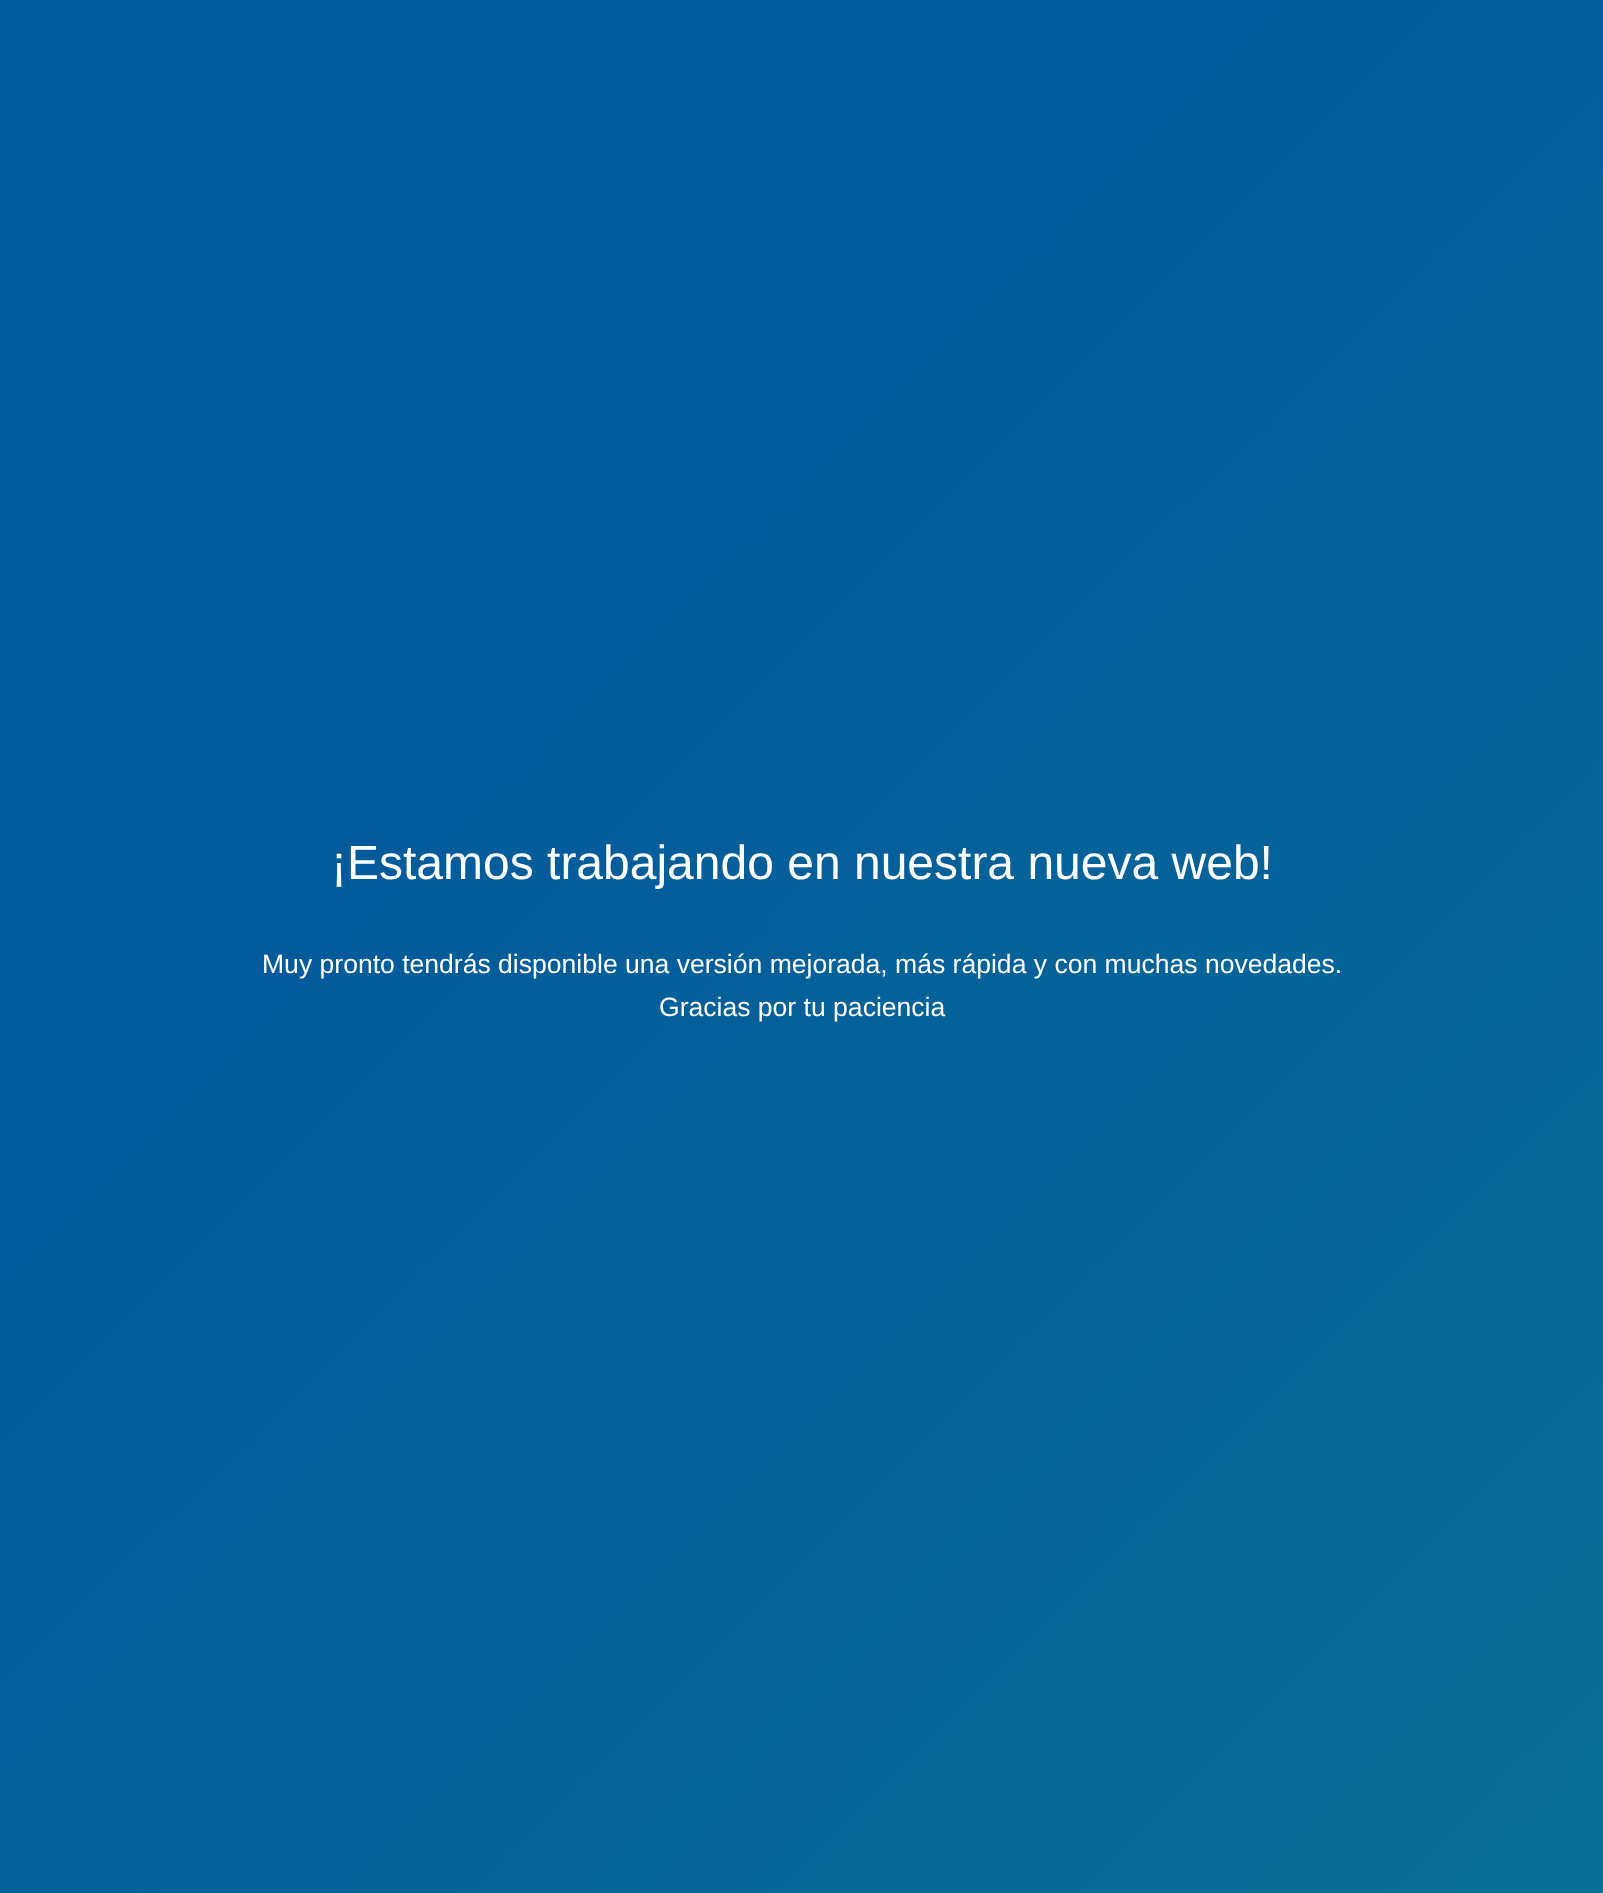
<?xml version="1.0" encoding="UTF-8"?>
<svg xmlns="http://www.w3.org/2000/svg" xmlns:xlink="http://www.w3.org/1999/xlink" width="1603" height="1893">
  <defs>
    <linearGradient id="g1" gradientUnits="userSpaceOnUse" x1="-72" y1="72" x2="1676" y2="1821"><stop offset="0.3" stop-color="#02599b" /><stop offset="1" stop-color="#087097" /></linearGradient>
  </defs>
  <rect width="100%" height="100%" fill="#ffffff" />
  <rect width="1603" height="1893" fill="url(#g1)" />
  <text x="331" y="879" style="font-family: Liberation Sans; font-size: 48px; fill: #ffffff">¡Estamos trabajando en nuestra nueva web!</text>
  <text x="262" y="973" style="font-family: Liberation Sans; font-size: 26.55px; fill: #ffffff">Muy pronto tendrás disponible una versión mejorada, más rápida y con muchas novedades.</text>
  <text x="659" y="1016" style="font-family: Liberation Sans; font-size: 26.55px; fill: #ffffff">Gracias por tu paciencia</text>
</svg>
